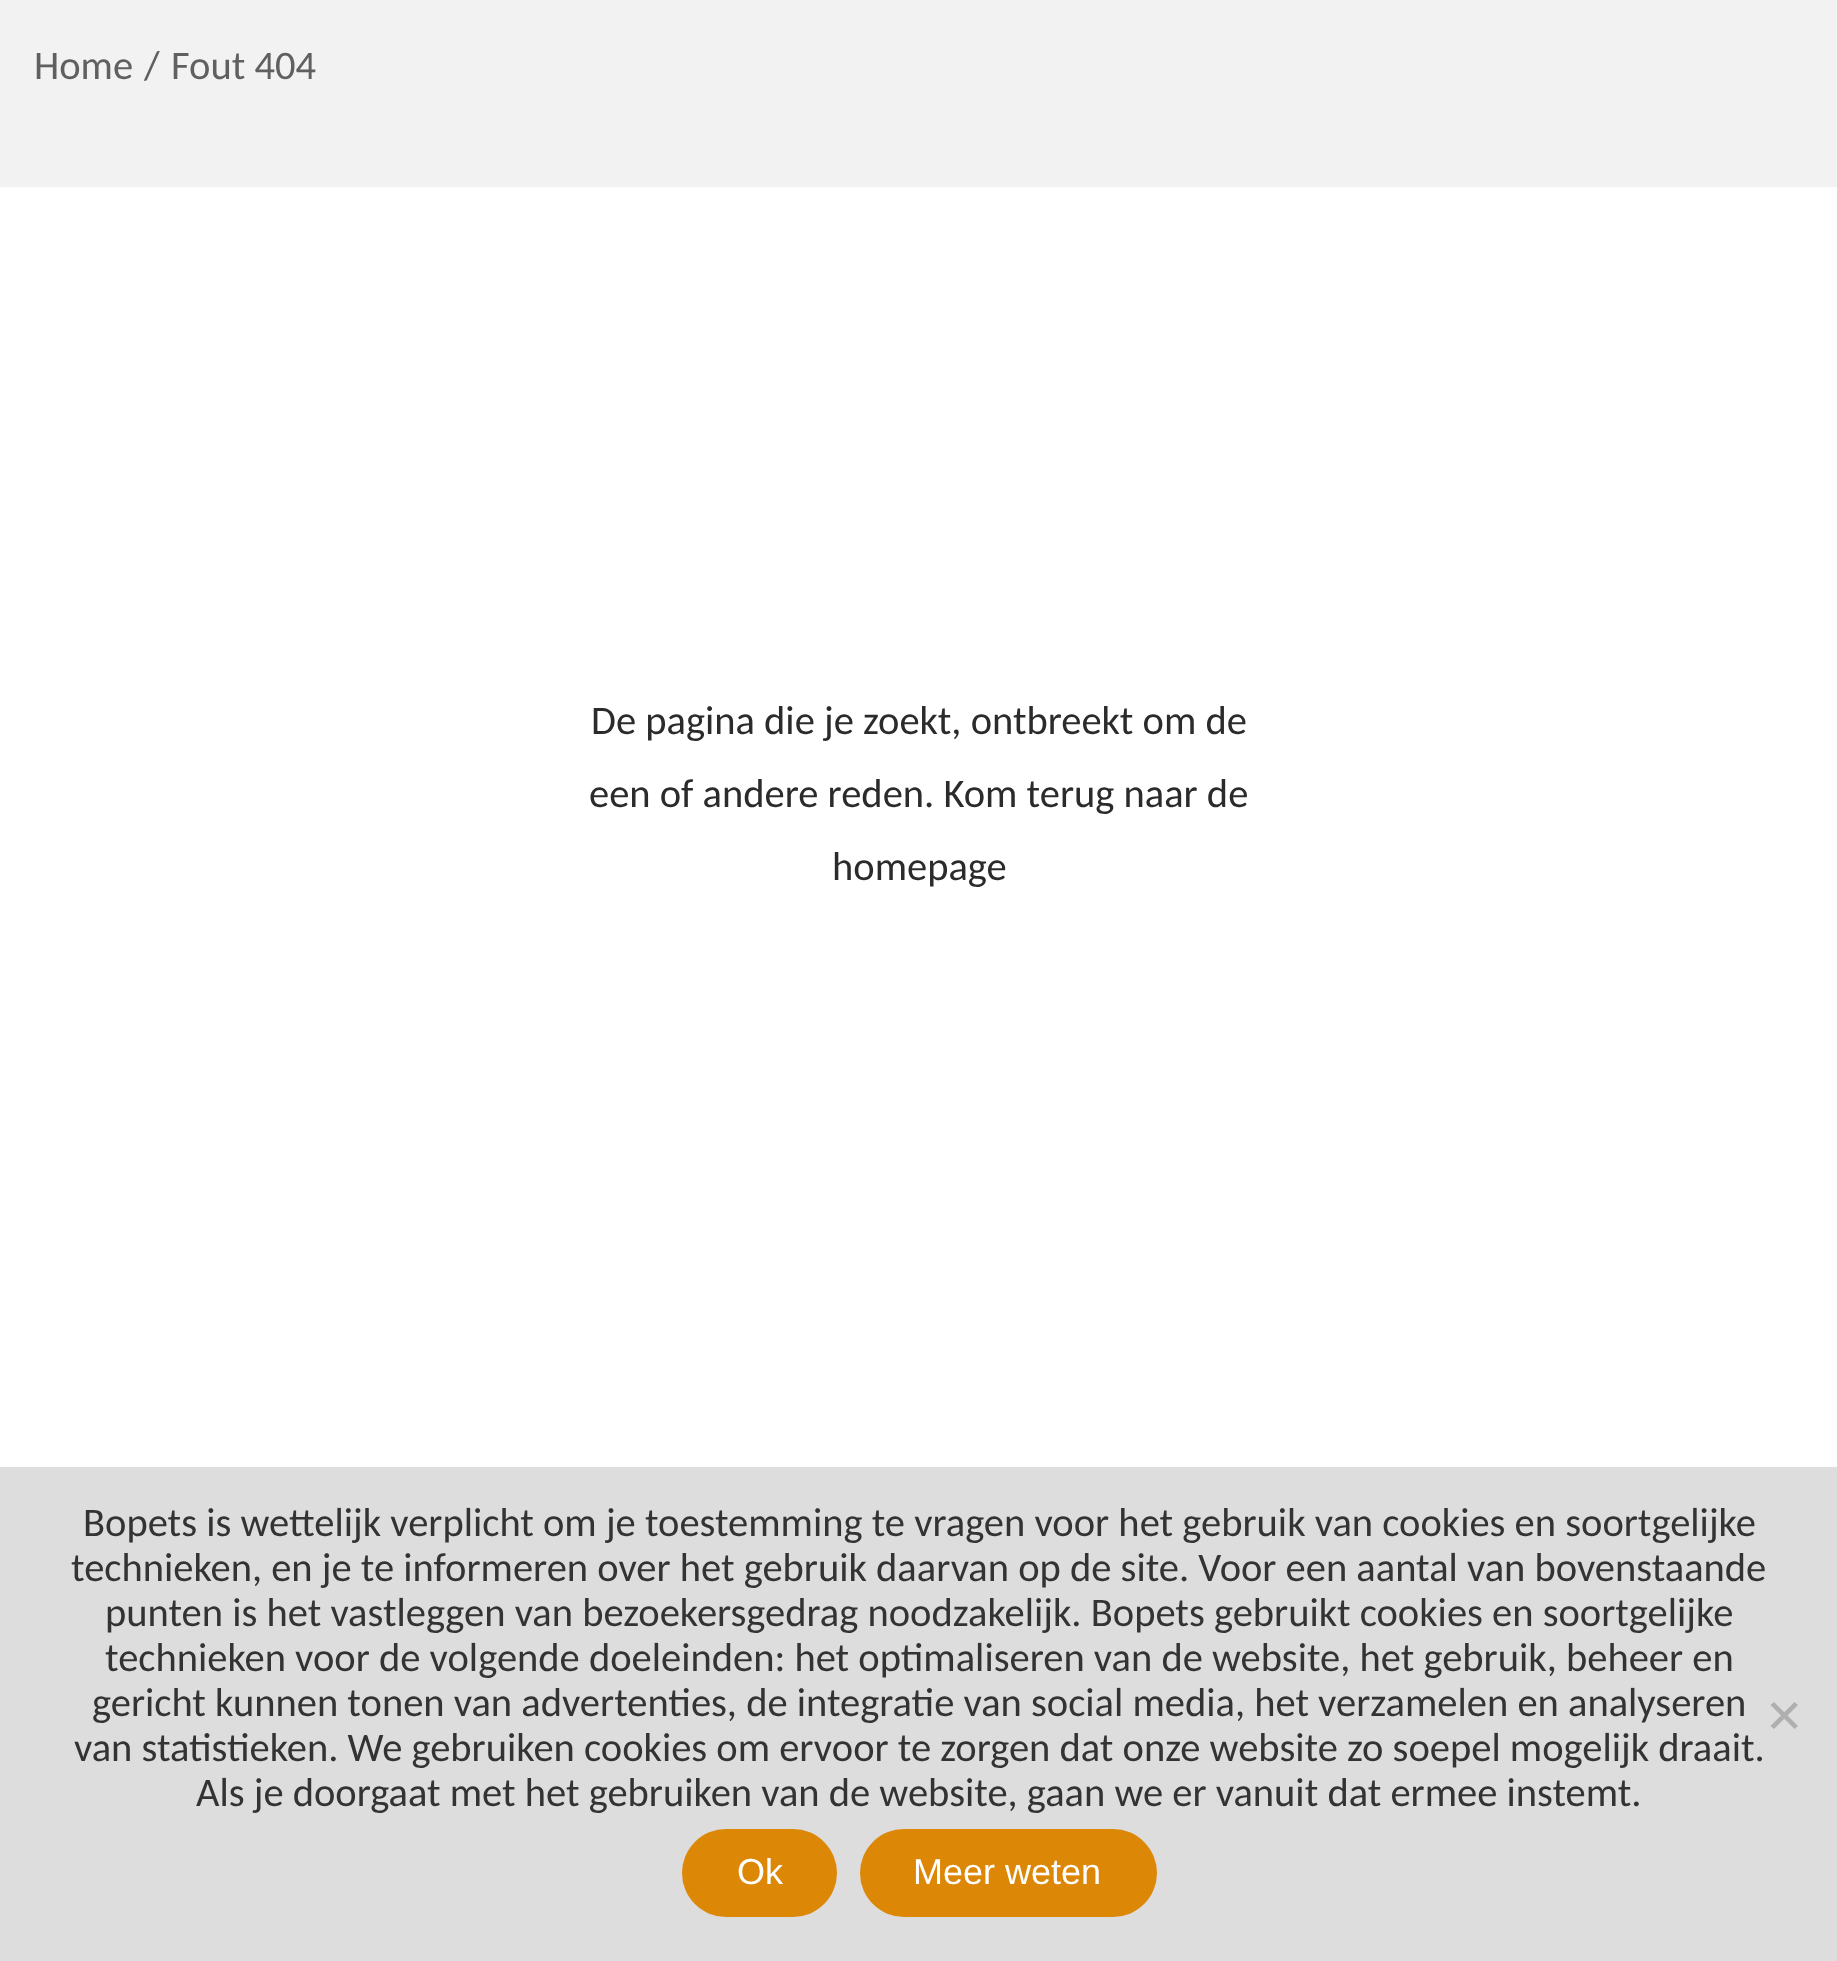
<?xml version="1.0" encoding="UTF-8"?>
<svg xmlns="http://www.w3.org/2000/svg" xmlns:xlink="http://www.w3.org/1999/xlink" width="1837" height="1961">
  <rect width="100%" height="100%" fill="#ffffff" />
  <rect width="1837" height="187" fill="#f2f2f2" />
  <rect y="1467" width="1837" height="494" fill="#dddddd" />
  <path d="M 1794.5 1702 l 3.5 3 l -24 24 l -3.5 -3 z" fill="#afafaf" />
  <path d="M 1770.5 1705 l 3.5 -3 l 24 24 l -3.5 3 z" fill="#afafaf" />
  <rect x="682" y="1829" width="155" height="88" rx="44" fill="#dd8706" />
  <rect x="860" y="1829" width="297" height="88" rx="44" fill="#dd8706" />
  <text x="34" y="79" style="font-family: Carlito; font-size: 40.5px; fill: #606060">Home</text>
  <text x="144" y="79" style="font-family: Carlito; font-size: 40.5px; fill: #606060">/</text>
  <text x="171" y="79" style="font-family: Carlito; font-size: 40.5px; fill: #606060">Fout 404</text>
  <text x="591" y="734" style="font-family: Carlito; font-size: 40.5px; fill: #2b2b2b">De pagina die je zoekt, ontbreekt om de</text>
  <text x="589" y="807" style="font-family: Carlito; font-size: 40.5px; fill: #2b2b2b">een of andere reden. Kom terug naar de</text>
  <text x="832" y="880" style="font-family: Carlito; font-size: 40.5px; fill: #2b2b2b">homepage</text>
  <text x="83" y="1536" style="font-family: Carlito; font-size: 40.5px; fill: #333333">Bopets is wettelijk verplicht om je toestemming te vragen voor het gebruik van cookies en soortgelijke</text>
  <text x="71" y="1581" style="font-family: Carlito; font-size: 40.5px; fill: #333333">technieken, en je te informeren over het gebruik daarvan op de site. Voor een aantal van bovenstaande</text>
  <text x="105" y="1626" style="font-family: Carlito; font-size: 40.5px; fill: #333333">punten is het vastleggen van bezoekersgedrag noodzakelijk. Bopets gebruikt cookies en soortgelijke</text>
  <text x="105" y="1671" style="font-family: Carlito; font-size: 40.5px; fill: #333333">technieken voor de volgende doeleinden: het optimaliseren van de website, het gebruik, beheer en</text>
  <text x="92" y="1716" style="font-family: Carlito; font-size: 40.5px; fill: #333333">gericht kunnen tonen van advertenties, de integratie van social media, het verzamelen en analyseren</text>
  <text x="74" y="1761" style="font-family: Carlito; font-size: 40.5px; fill: #333333">van statistieken. We gebruiken cookies om ervoor te zorgen dat onze website zo soepel mogelijk draait.</text>
  <text x="196" y="1806" style="font-family: Carlito; font-size: 40.5px; fill: #333333">Als je doorgaat met het gebruiken van de website, gaan we er vanuit dat ermee instemt.</text>
  <text x="737" y="1884" style="font-family: Liberation Sans; font-size: 36px; fill: #ffffff">Ok</text>
  <text x="913" y="1884" style="font-family: Liberation Sans; font-size: 36px; fill: #ffffff">Meer weten</text>
</svg>
